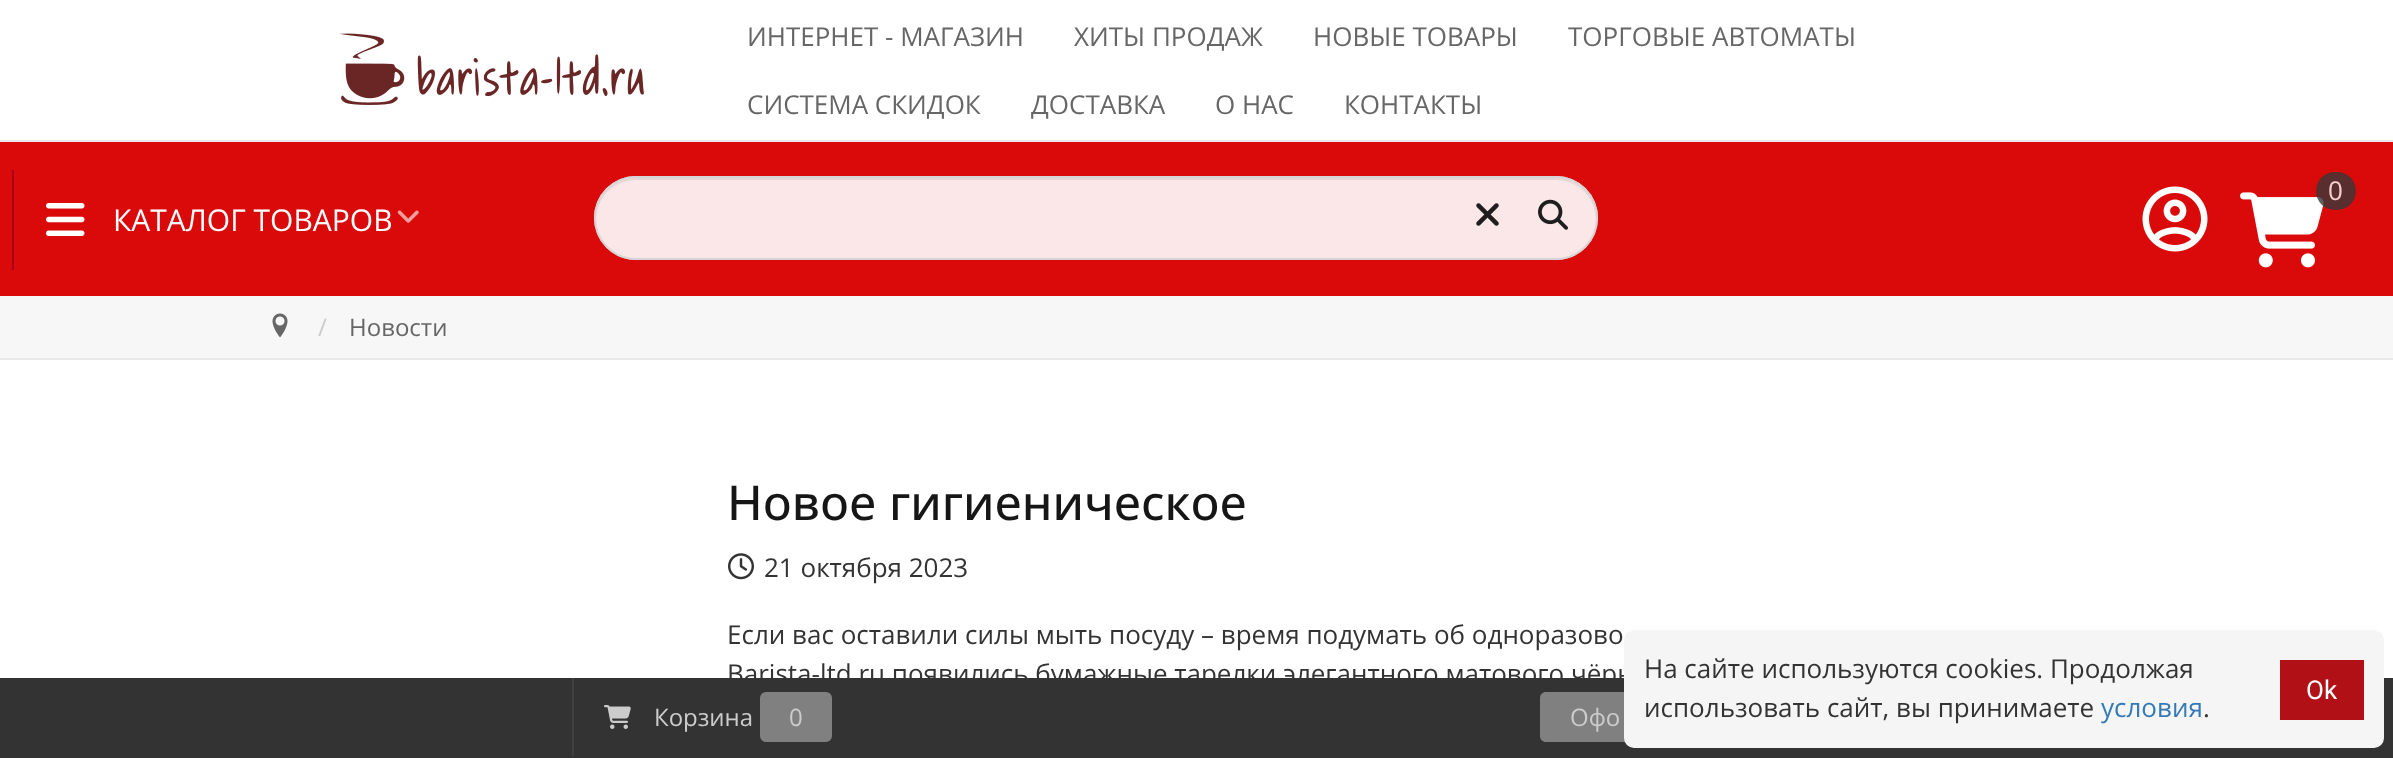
<?xml version="1.0" encoding="UTF-8"?>
<svg xmlns="http://www.w3.org/2000/svg" xmlns:xlink="http://www.w3.org/1999/xlink" width="2393" height="758">
  <rect width="100%" height="100%" fill="#ffffff" />
  <rect y="140" width="2393" height="2" fill="#e9e9e9" />
  <image x="339" y="33" width="305" height="72" xlink:href="image1.png" />
  <rect y="142" width="2393" height="154" fill="#da0a0a" />
  <rect x="594" y="176" width="1004" height="84" rx="42" fill="#fbe7e7" />
  <path d="M 636 180 h 920 c 22 0 39 17 40 39 c 1 -22 -18 -41 -40 -41 h -920 c -22 0 -41 19 -40 41 c 1 -22 18 -39 40 -39 z" fill="#e8d6d6" />
  <rect x="595" y="177" width="1002" height="82" rx="41" fill="none" stroke="#d5d5d5" stroke-width="2" />
  <image x="1476" y="203" width="23" height="23" xlink:href="image2.png" />
  <image x="1538" y="199" width="30" height="31" xlink:href="image3.png" />
  <image x="2142" y="186" width="66" height="66" xlink:href="image4.png" />
  <image x="2240" y="192" width="84" height="76" xlink:href="image5.png" />
  <rect x="2316" y="172" width="40" height="38" rx="19" fill="#373737" fill-opacity="0.8" />
  <rect x="12" y="170" width="2" height="100" fill="#a50315" />
  <image x="46" y="203" width="39" height="33" xlink:href="image6.png" />
  <image x="397" y="210" width="22" height="13" xlink:href="image7.png" />
  <rect y="296" width="2393" height="62" fill="#f7f7f7" />
  <rect y="358" width="2393" height="2" fill="#e9e9e9" />
  <image x="272" y="313" width="16" height="25" xlink:href="image8.png" />
  <image x="728" y="553" width="26" height="27" xlink:href="image9.png" />
  <rect y="678" width="2393" height="80" fill="#333333" />
  <rect x="572" y="678" width="2" height="78" fill="#404040" />
  <image x="604" y="705" width="27" height="24" xlink:href="image10.png" />
  <rect x="760" y="692" width="72" height="50" rx="6" fill="#808080" />
  <path d="M 1546 692 h 154 v 50 h -154 c -3.5 0 -6 -2.5 -6 -6 v -38 c 0 -3.5 2.5 -6 6 -6 z" fill="#808080" />
  <text x="747" y="46" style="font-family: Open Sans; font-size: 26px; fill: #666666">ИНТЕРНЕТ - МАГАЗИН</text>
  <text x="1074" y="46" style="font-family: Open Sans; font-size: 26px; fill: #666666">ХИТЫ ПРОДАЖ</text>
  <text x="1313" y="46" style="font-family: Open Sans; font-size: 26px; fill: #666666">НОВЫЕ ТОВАРЫ</text>
  <text x="1568" y="46" style="font-family: Open Sans; font-size: 26px; fill: #666666">ТОРГОВЫЕ АВТОМАТЫ</text>
  <text x="747" y="114" style="font-family: Open Sans; font-size: 26px; fill: #666666">СИСТЕМА СКИДОК</text>
  <text x="1031" y="114" style="font-family: Open Sans; font-size: 26px; fill: #666666">ДОСТАВКА</text>
  <text x="1215" y="114" style="font-family: Open Sans; font-size: 26px; fill: #666666">О НАС</text>
  <text x="1344" y="114" style="font-family: Open Sans; font-size: 26px; fill: #666666">КОНТАКТЫ</text>
  <text x="2328" y="200" style="font-family: Open Sans; font-size: 26px; fill: #f8cece">0</text>
  <text x="113" y="231" style="font-family: Open Sans; font-size: 30px; fill: #ffffff">КАТАЛОГ ТОВАРОВ</text>
  <text x="318" y="336" style="font-family: Open Sans; font-size: 24px; fill: #cccccc">/</text>
  <text x="349" y="336" style="font-family: Open Sans; font-size: 24px; fill: #666666">Новости</text>
  <text x="727" y="520" style="font-family: Open Sans; font-size: 48px; font-weight: 500; fill: #161616">Новое гигиеническое</text>
  <text x="764" y="577" style="font-family: Open Sans; font-size: 26px; fill: #333333">21 октября 2023</text>
  <text x="727" y="644" style="font-family: Open Sans; font-size: 26px; fill: #333333">Если вас оставили силы мыть посуду – время подумать об одноразово</text>
  <text x="727" y="683" style="font-family: Open Sans; font-size: 26px; fill: #333333">Barista-ltd.ru появились бумажные тарелки элегантного матового чёрн</text>
  <text x="654" y="726" style="font-family: Open Sans; font-size: 24px; fill: #cccccc">Корзина</text>
  <text x="789" y="726" style="font-family: Open Sans; font-size: 24px; fill: #cccccc">0</text>
  <text x="1570" y="726" style="font-family: Open Sans; font-size: 24px; fill: #cccccc">Офо</text>
  <rect x="1624" y="630" width="760" height="118" rx="10" fill="#f5f5f5" />
  <text x="1644" y="678" style="font-family: Open Sans; font-size: 26px; fill: #333333">На сайте используются cookies. Продолжая</text>
  <text x="1644" y="717" style="font-family: Open Sans; font-size: 26px; fill: #333333">использовать сайт, вы принимаете</text>
  <text x="2101" y="717" style="font-family: Open Sans; font-size: 26px; fill: #337ab7">условия</text>
  <text x="2203" y="717" style="font-family: Open Sans; font-size: 26px; fill: #333333">.</text>
  <rect x="2280" y="660" width="84" height="60" fill="#b11116" />
  <text x="2306" y="699" style="font-family: Roboto; font-size: 26px; fill: #ffffff">Ok</text>
</svg>
